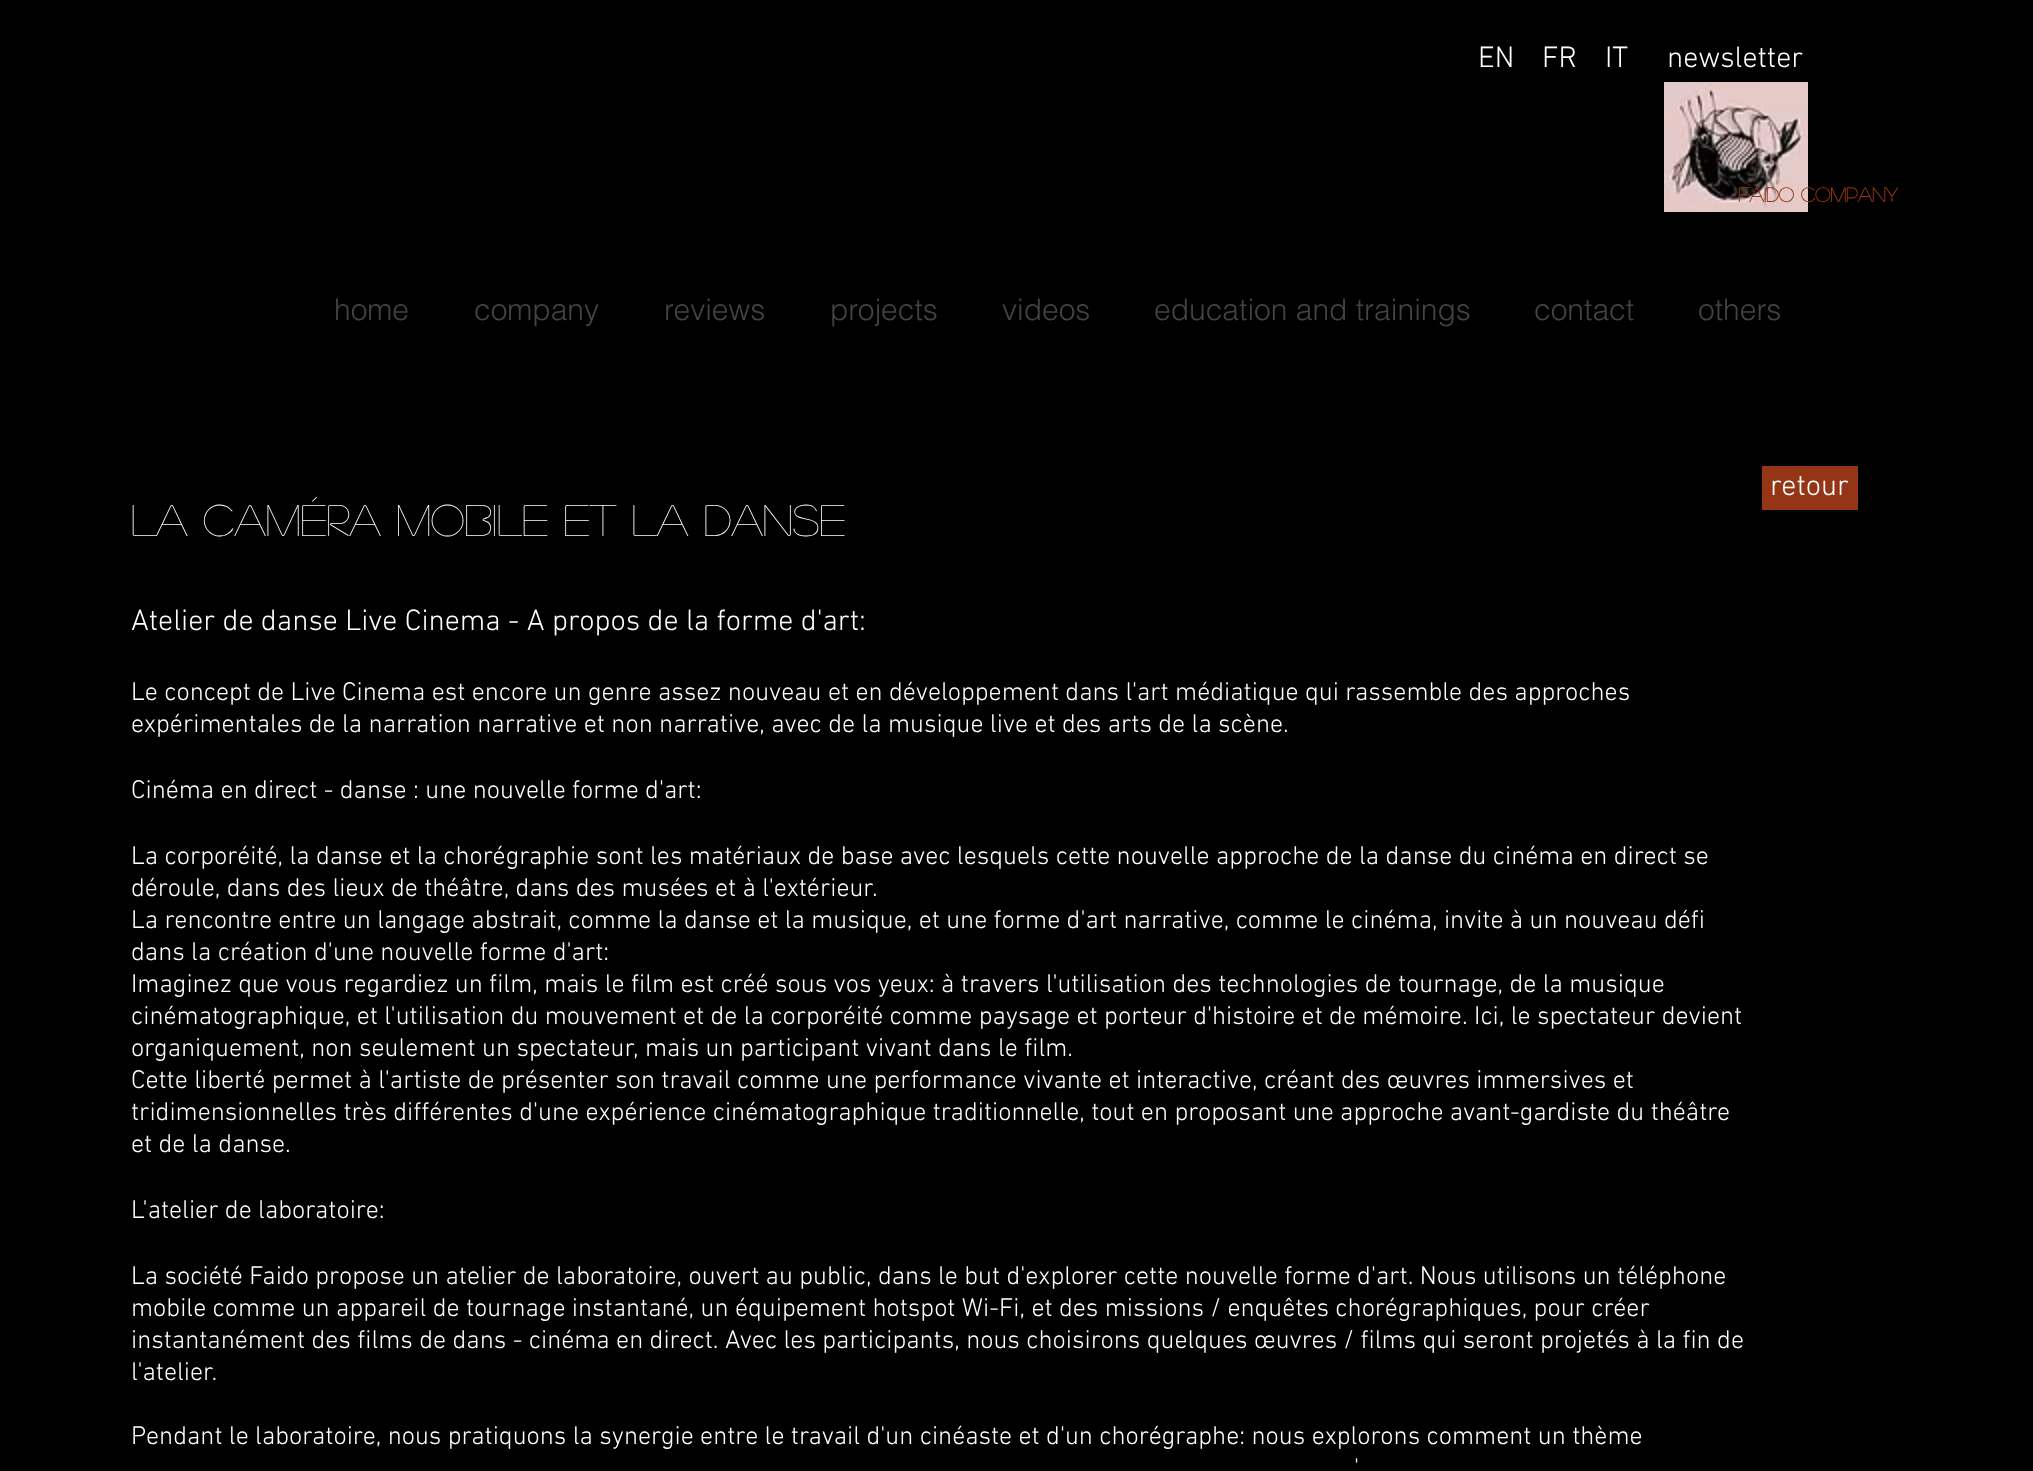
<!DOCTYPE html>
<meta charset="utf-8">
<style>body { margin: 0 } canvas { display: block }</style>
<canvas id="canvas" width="2033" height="1471"></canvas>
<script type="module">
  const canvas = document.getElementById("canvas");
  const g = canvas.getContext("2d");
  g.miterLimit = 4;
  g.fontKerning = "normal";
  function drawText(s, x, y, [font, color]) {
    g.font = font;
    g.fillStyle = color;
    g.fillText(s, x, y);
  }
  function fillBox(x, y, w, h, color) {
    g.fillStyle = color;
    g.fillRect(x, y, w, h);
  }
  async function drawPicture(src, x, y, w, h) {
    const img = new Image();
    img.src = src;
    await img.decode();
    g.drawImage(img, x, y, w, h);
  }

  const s1 = ["300 30px 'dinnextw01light'", "#FFFFFF"];
  const s2 = ["bold 20px 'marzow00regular'", "#943616"];
  const s3 = ["300 30px helvetica", "#444444"];
  const s4 = ["44px 'marzow00regular'", "#FFFFFF"];
  const s5 = ["300 26px 'dinnextw01light'", "#FFFFFF"];

  fillBox(0, 0, 2033, 1471, "#000000");
  drawText("EN", 1478, 67, s1);
  drawText("FR", 1542, 67, s1);
  drawText("IT", 1605, 67, s1);
  drawText("newsletter", 1667, 67, s1);
  await drawPicture("pic1.png", 1664, 82, 144, 130);
  drawText("Faido company", 1738, 202, s2);
  drawText("home", 334, 320, s3);
  drawText("company", 474, 320, s3);
  drawText("reviews", 664, 320, s3);
  drawText("projects", 830, 320, s3);
  drawText("videos", 1002, 320, s3);
  drawText("education and trainings", 1154, 320, s3);
  drawText("contact", 1534, 320, s3);
  drawText("others", 1698, 320, s3);
  fillBox(1762, 466, 96, 44, "#943616");
  drawText("retour", 1770, 495, s1);
  drawText("La caméra mobile et la danse", 131, 536, s4);
  drawText("Atelier de danse Live Cinema - A propos de la forme d'art:", 131, 630, s1);
  drawText("Le concept de Live Cinema est encore un genre assez nouveau et en développement dans l'art médiatique qui rassemble des approches", 131, 700, s5);
  drawText("expérimentales de la narration narrative et non narrative, avec de la musique live et des arts de la scène.", 131, 732, s5);
  drawText("Cinéma en direct - danse : une nouvelle forme d'art:", 131, 798, s5);
  drawText("La corporéité, la danse et la chorégraphie sont les matériaux de base avec lesquels cette nouvelle approche de la danse du cinéma en direct se", 131, 864, s5);
  drawText("déroule, dans des lieux de théâtre, dans des musées et à l'extérieur.", 131, 896, s5);
  drawText("La rencontre entre un langage abstrait, comme la danse et la musique, et une forme d'art narrative, comme le cinéma, invite à un nouveau défi", 131, 928, s5);
  drawText("dans la création d'une nouvelle forme d'art:", 131, 960, s5);
  drawText("Imaginez que vous regardiez un film, mais le film est créé sous vos yeux: à travers l'utilisation des technologies de tournage, de la musique", 131, 992, s5);
  drawText("cinématographique, et l'utilisation du mouvement et de la corporéité comme paysage et porteur d'histoire et de mémoire. Ici, le spectateur devient", 131, 1024, s5);
  drawText("organiquement, non seulement un spectateur, mais un participant vivant dans le film.", 131, 1056, s5);
  drawText("Cette liberté permet à l'artiste de présenter son travail comme une performance vivante et interactive, créant des œuvres immersives et", 131, 1088, s5);
  drawText("tridimensionnelles très différentes d'une expérience cinématographique traditionnelle, tout en proposant une approche avant-gardiste du théâtre", 131, 1120, s5);
  drawText("et de la danse.", 131, 1152, s5);
  drawText("L'atelier de laboratoire:", 131, 1218, s5);
  drawText("La société Faido propose un atelier de laboratoire, ouvert au public, dans le but d'explorer cette nouvelle forme d'art. Nous utilisons un téléphone", 131, 1284, s5);
  drawText("mobile comme un appareil de tournage instantané, un équipement hotspot Wi-Fi, et des missions / enquêtes chorégraphiques, pour créer", 131, 1316, s5);
  drawText("instantanément des films de dans - cinéma en direct. Avec les participants, nous choisirons quelques œuvres / films qui seront projetés à la fin de", 131, 1348, s5);
  drawText("l'atelier.", 131, 1380, s5);
  drawText("Pendant le laboratoire, nous pratiquons la synergie entre le travail d'un cinéaste et d'un chorégraphe: nous explorons comment un thème", 131, 1444, s5);
  drawText("'", 1354, 1476, s5);
</script>
